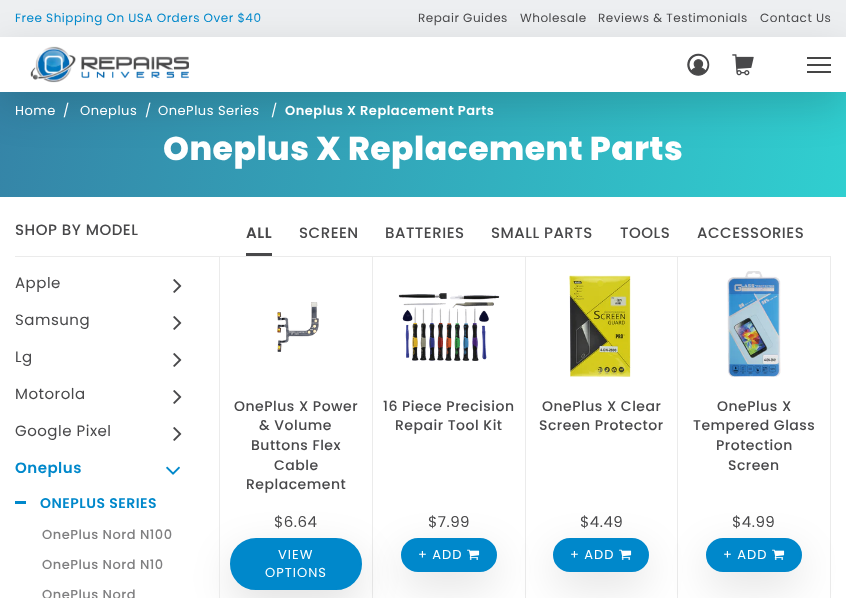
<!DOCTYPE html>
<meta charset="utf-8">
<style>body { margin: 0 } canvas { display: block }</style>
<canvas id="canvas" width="846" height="598"></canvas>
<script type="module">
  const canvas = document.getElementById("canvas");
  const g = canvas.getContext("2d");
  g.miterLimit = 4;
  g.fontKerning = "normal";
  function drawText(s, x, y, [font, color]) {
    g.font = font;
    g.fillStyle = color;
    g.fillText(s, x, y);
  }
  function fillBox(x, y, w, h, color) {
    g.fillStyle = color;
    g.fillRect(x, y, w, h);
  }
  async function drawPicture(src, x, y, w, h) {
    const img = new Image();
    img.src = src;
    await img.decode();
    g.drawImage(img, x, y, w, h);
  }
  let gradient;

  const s1 = ["12px Poppins", "#0088CB"];
  const s2 = ["12px Poppins", "#48484A"];
  const s3 = ["13px Poppins", "#FFFFFF"];
  const s4 = ["600 13px Poppins", "#FFFFFF"];
  const s5 = ["800 33px Poppins", "#FFFFFF"];
  const s6 = ["500 15px Poppins", "#48484A"];
  const s7 = ["15px Poppins", "#48484A"];
  const s8 = ["600 15px Poppins", "#0088CB"];
  const s9 = ["600 14px Poppins", "#0088CB"];
  const s10 = ["500 13px Poppins", "#7F7F80"];
  const s11 = ["600 15px Poppins", "#48484A"];
  const s12 = ["500 14px Poppins", "#48484A"];

  fillBox(0, 0, 846, 598, "#FFFFFF");
  fillBox(0, 0, 846, 37, "#EDEFF1");
  gradient = g.createLinearGradient(3.8, 71, 842, 218);
  gradient.addColorStop(0, "#3584A7");
  gradient.addColorStop(1, "#30CFD0");
  g.fillStyle = gradient;
  g.fillRect(0, 92, 846, 105);
  g.fillStyle = "rgba(0, 0, 0, 0.15)";
  g.filter = "blur(21px)";
  g.beginPath();
  g.rect(0, 51, 846, 55);
  g.fill();
  g.filter = "none";
  fillBox(0, 37, 846, 55, "#FFFFFF");
  await drawPicture("pic1.png", 30, 46, 159, 37);
  await drawPicture("pic2.png", 687, 53, 23, 23);
  await drawPicture("pic3.png", 732, 54, 22, 22);
  fillBox(807, 64, 24, 2, "#454545");
  fillBox(807, 57, 24, 2, "#454545");
  fillBox(807, 71, 24, 2, "#454545");
  g.letterSpacing = "0.5px";
  drawText("Free Shipping On USA Orders Over $40", 15, 22, s1);
  drawText("Repair Guides", 418, 22, s2);
  drawText("Wholesale", 520, 22, s2);
  drawText("Reviews & Testimonials", 598, 22, s2);
  drawText("Contact Us", 760, 22, s2);
  drawText("Home", 15, 115, s3);
  drawText("/", 63, 115, s3);
  drawText("Oneplus", 80, 115, s3);
  drawText("/", 145, 115, s3);
  drawText("OnePlus Series", 158, 115, s3);
  drawText("/", 271, 115, s3);
  drawText("Oneplus X Replacement Parts", 285, 115, s4);
  drawText("Oneplus X Replacement Parts", 163, 160, s5);
  drawText("SHOP BY MODEL", 15, 235, s6);
  drawText("Apple", 15, 288, s7);
  await drawPicture("pic4.png", 173, 279, 9, 14);
  drawText("Samsung", 15, 325, s7);
  await drawPicture("pic4.png", 173, 316, 9, 14);
  drawText("Lg", 15, 362, s7);
  await drawPicture("pic4.png", 173, 353, 9, 14);
  drawText("Motorola", 15, 399, s7);
  await drawPicture("pic4.png", 173, 390, 9, 14);
  drawText("Google Pixel", 15, 436, s7);
  await drawPicture("pic4.png", 173, 427, 9, 14);
  drawText("Oneplus", 15, 473, s8);
  await drawPicture("pic5.png", 166, 466, 14, 9);
  fillBox(15, 501, 11, 3, "#0088CB");
  drawText("ONEPLUS SERIES", 40, 508, s9);
  fillBox(372, 257, 1, 341, "#EBEBEB");
  g.fillStyle = "rgba(0, 0, 0, 0.12)";
  g.filter = "blur(21px)";
  g.beginPath();
  g.roundRect(230, 552, 132, 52, 26);
  g.fill();
  g.filter = "none";
  drawText("OnePlus Nord N100", 42, 539, s10);
  drawText("OnePlus Nord N10", 42, 569, s10);
  drawText("OnePlus Nord", 42, 599, s10);
  fillBox(219, 262, 1, 336, "#EBEBEB");
  fillBox(246, 253, 26, 3, "#48484A");
  drawText("ALL", 246, 238, s11);
  drawText("SCREEN", 299, 238, s6);
  drawText("BATTERIES", 385, 238, s6);
  drawText("SMALL PARTS", 491, 238, s6);
  drawText("TOOLS", 620, 238, s6);
  drawText("ACCESSORIES", 697, 238, s6);
  fillBox(15, 256, 816, 1, "#EBEBEB");
  fillBox(219, 256, 1, 6, "#EBEBEB");
  await drawPicture("pic6.png", 277, 302, 42, 50);
  drawText("OnePlus X Power", 234, 411, s12);
  drawText("& Volume", 259, 430, s12);
  drawText("Buttons Flex", 251, 450, s12);
  drawText("Cable", 274, 470, s12);
  drawText("Replacement", 246, 489, s12);
  drawText("$6.64", 274, 527, s7);
  g.fillStyle = "#0088CB";
  g.beginPath();
  g.roundRect(231, 539, 130, 50, 25);
  g.fill();
  g.strokeStyle = "#0088CB";
  g.lineWidth = 2;
  g.stroke();
  g.letterSpacing = "1px";
  drawText("VIEW", 278, 559, s3);
  drawText("OPTIONS", 265, 577, s3);
  fillBox(525, 257, 1, 341, "#EBEBEB");
  await drawPicture("pic7.png", 398, 293, 102, 68);
  g.letterSpacing = "0.5px";
  drawText("16 Piece Precision", 383, 411, s12);
  drawText("Repair Tool Kit", 395, 430, s12);
  drawText("$7.99", 428, 527, s7);
  g.fillStyle = "rgba(0, 0, 0, 0.12)";
  g.filter = "blur(21px)";
  g.beginPath();
  g.roundRect(401, 552, 96, 34, 17);
  g.fill();
  g.filter = "none";
  g.fillStyle = "#0088CB";
  g.beginPath();
  g.roundRect(402, 539, 94, 32, 16);
  g.fill();
  g.stroke();
  g.letterSpacing = "1px";
  drawText("+ ADD", 418, 559, s3);
  await drawPicture("pic8.png", 467, 549, 13, 11);
  fillBox(677, 257, 1, 341, "#EBEBEB");
  await drawPicture("pic9.png", 569, 275, 62, 102);
  g.letterSpacing = "0.5px";
  drawText("OnePlus X Clear", 542, 411, s12);
  drawText("Screen Protector", 539, 430, s12);
  drawText("$4.49", 580, 527, s7);
  g.fillStyle = "rgba(0, 0, 0, 0.12)";
  g.filter = "blur(21px)";
  g.beginPath();
  g.roundRect(553, 552, 96, 34, 17);
  g.fill();
  g.filter = "none";
  g.fillStyle = "#0088CB";
  g.beginPath();
  g.roundRect(554, 539, 94, 32, 16);
  g.fill();
  g.stroke();
  g.letterSpacing = "1px";
  drawText("+ ADD", 570, 559, s3);
  await drawPicture("pic8.png", 619, 549, 13, 11);
  fillBox(830, 257, 1, 341, "#EBEBEB");
  await drawPicture("pic10.png", 727, 271, 54, 106);
  g.letterSpacing = "0.5px";
  drawText("OnePlus X", 717, 411, s12);
  drawText("Tempered Glass", 693, 430, s12);
  drawText("Protection", 716, 450, s12);
  drawText("Screen", 728, 470, s12);
  drawText("$4.99", 732, 527, s7);
  g.fillStyle = "rgba(0, 0, 0, 0.12)";
  g.filter = "blur(21px)";
  g.beginPath();
  g.roundRect(706, 552, 96, 34, 17);
  g.fill();
  g.filter = "none";
  g.fillStyle = "#0088CB";
  g.beginPath();
  g.roundRect(707, 539, 94, 32, 16);
  g.fill();
  g.stroke();
  g.letterSpacing = "1px";
  drawText("+ ADD", 723, 559, s3);
  await drawPicture("pic8.png", 772, 549, 13, 11);
</script>
